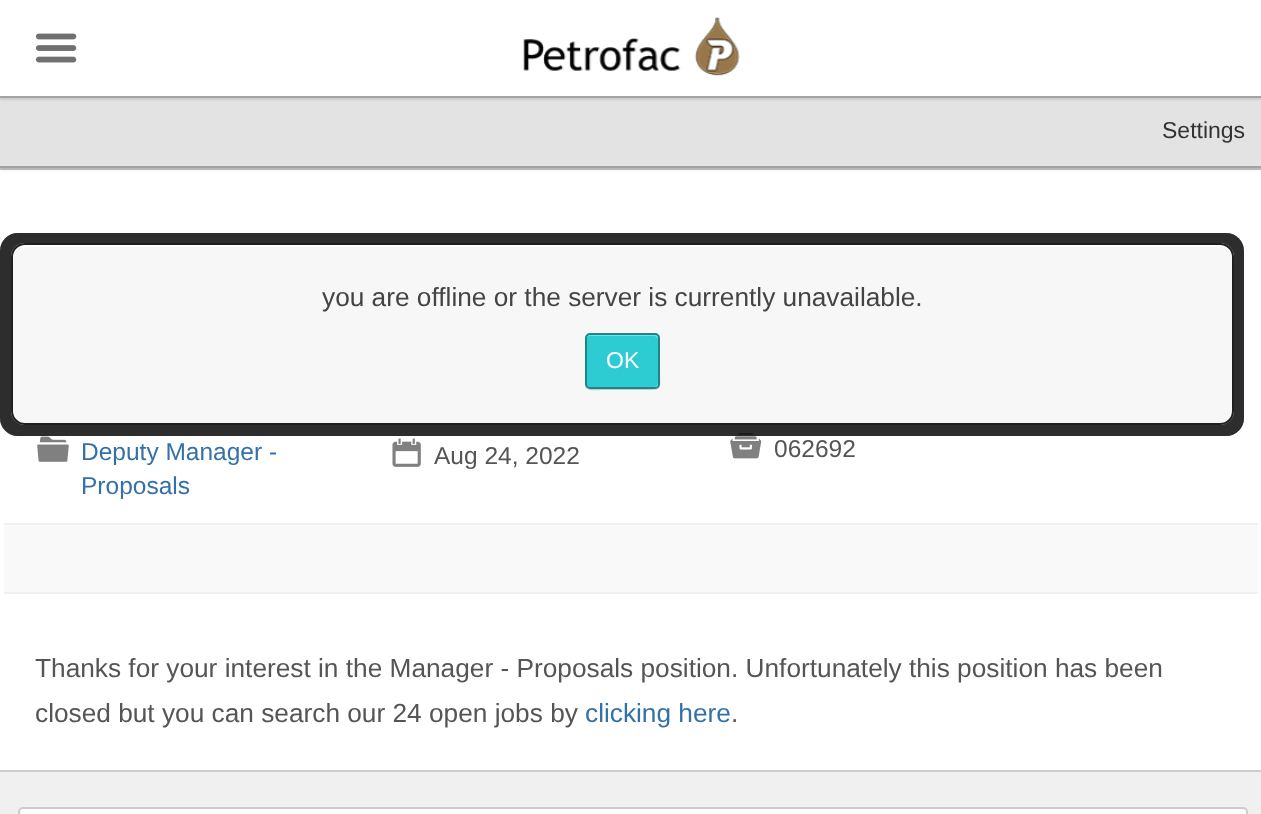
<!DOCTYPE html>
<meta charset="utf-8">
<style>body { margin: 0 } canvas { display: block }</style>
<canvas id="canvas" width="1261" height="814"></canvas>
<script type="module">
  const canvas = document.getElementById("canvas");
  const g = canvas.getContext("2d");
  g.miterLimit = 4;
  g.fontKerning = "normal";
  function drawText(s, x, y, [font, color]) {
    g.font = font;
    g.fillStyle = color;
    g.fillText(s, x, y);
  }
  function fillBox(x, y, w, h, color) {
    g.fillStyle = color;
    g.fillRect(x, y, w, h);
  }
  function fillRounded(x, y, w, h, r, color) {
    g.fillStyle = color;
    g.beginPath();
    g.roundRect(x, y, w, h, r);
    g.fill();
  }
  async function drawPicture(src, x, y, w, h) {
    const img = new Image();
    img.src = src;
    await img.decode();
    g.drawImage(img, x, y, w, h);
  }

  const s1 = ["23px Liberation Sans", "#333333"];
  const s2 = ["26.25px Liberation Sans", "#444444"];
  const s3 = ["23px Liberation Sans", "#FFFFFF"];
  const s4 = ["24.5px Liberation Sans", "#3571A6"];
  const s5 = ["24.5px Liberation Sans", "#555555"];
  const s6 = ["26.25px Liberation Sans", "#555555"];
  const s7 = ["26.25px Liberation Sans", "#3571A6"];

  fillBox(0, 0, 1261, 814, "#F0F0F0");
  fillBox(0, 170, 1261, 600, "#FFFFFF");
  fillBox(0, 168, 1261, 2, "#CCCCCC");
  g.fillStyle = "rgba(0, 0, 0, 0.1)";
  g.filter = "blur(1px)";
  g.beginPath();
  g.rect(0, 98, 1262, 72);
  g.fill();
  g.filter = "none";
  fillBox(0, 98, 1261, 68, "#E3E3E3");
  fillBox(0, 166, 1261, 2, "#A3A3A3");
  drawText("Settings", 1162, 138, s1);
  await drawPicture("pic5.png", 730, 433, 32, 26);
  fillRounded(0, 233, 1244, 203, 18, "rgba(0, 0, 0, 0.35)");
  g.beginPath();
  g.roundRect(12, 244, 1221, 180, 13);
  g.strokeStyle = "#202020";
  g.lineWidth = 2;
  g.stroke();
  fillRounded(0, 233, 1244, 203, 18, "rgba(0, 0, 0, 0.35)");
  g.beginPath();
  g.roundRect(12, 244, 1221, 180, 13);
  g.stroke();
  fillRounded(0, 233, 1244, 203, 18, "rgba(0, 0, 0, 0.35)");
  g.beginPath();
  g.roundRect(12, 244, 1221, 180, 13);
  g.stroke();
  fillRounded(0, 233, 1244, 203, 18, "rgba(0, 0, 0, 0.35)");
  fillRounded(11, 243, 1223, 182, 14, "#F7F7F7");
  g.fillStyle = "#FFFFFF";
  g.beginPath();
  g.moveTo(24, 247);
  g.lineTo(1220, 247);
  g.bezierCurveTo(1227, 247, 1232, 252, 1232, 259);
  g.bezierCurveTo(1232, 252, 1228, 245, 1220, 245);
  g.lineTo(24, 245);
  g.bezierCurveTo(16, 245, 12, 252, 12, 259);
  g.bezierCurveTo(12, 252, 18, 247, 24, 247);
  g.closePath();
  g.fill();
  g.beginPath();
  g.roundRect(12, 244, 1221, 180, 13);
  g.stroke();
  drawText("you are offline or the server is currently unavailable.", 322, 306, s2);
  g.fillStyle = "#CBCBCB";
  g.beginPath();
  g.moveTo(585, 386);
  g.bezierCurveTo(586, 392, 598, 390, 601, 390);
  g.lineTo(644, 390);
  g.bezierCurveTo(664, 390, 660, 390, 660, 370);
  g.lineTo(660, 337);
  g.lineTo(660, 376);
  g.bezierCurveTo(660, 391, 659, 388, 644, 388);
  g.lineTo(601, 388);
  g.bezierCurveTo(597, 388, 588, 391, 585, 386);
  g.closePath();
  g.fill();
  fillRounded(586, 334, 72, 53, 4, "#2DCCD3");
  g.fillStyle = "rgba(255, 255, 255, 0.35)";
  g.beginPath();
  g.moveTo(590, 336);
  g.lineTo(654, 336);
  g.bezierCurveTo(656, 336, 658, 338, 658, 340);
  g.bezierCurveTo(658, 331, 651, 334, 643, 334);
  g.lineTo(601, 334);
  g.bezierCurveTo(593, 334, 586, 331, 586, 340);
  g.bezierCurveTo(586, 338, 588, 336, 590, 336);
  g.closePath();
  g.fill();
  g.beginPath();
  g.roundRect(586, 334, 73, 54, 4);
  g.strokeStyle = "#1D8589";
  g.stroke();
  drawText("OK", 606, 368, s3);
  g.fillStyle = "rgba(0, 0, 0, 0.1)";
  g.filter = "blur(1px)";
  g.beginPath();
  g.rect(0, 2, 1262, 98);
  g.fill();
  g.filter = "none";
  fillBox(0, 0, 1261, 96, "#FFFFFF");
  fillBox(0, 96, 1261, 2, "#A3A3A3");
  await drawPicture("pic1.png", 35, 33, 42, 30);
  await drawPicture("pic2.png", 523, 17, 217, 59);
  fillBox(0, 770, 1261, 2, "#CCCCCC");
  await drawPicture("pic3.png", 37, 436, 32, 26);
  drawText("Deputy Manager -", 81, 460, s4);
  drawText("Proposals", 81, 494, s4);
  await drawPicture("pic4.png", 392, 438, 29, 29);
  drawText("Aug 24, 2022", 434, 464, s5);
  drawText("062692", 774, 457, s5);
  fillBox(4, 525, 1254, 67, "#F9F9F9");
  fillBox(4, 523, 1254, 2, "#F0F0F0");
  fillBox(4, 592, 1254, 2, "#F0F0F0");
  drawText("Thanks for your interest in the Manager - Proposals position. Unfortunately this position has been", 35, 677, s6);
  drawText("closed but you can search our 24 open jobs by", 35, 722, s6);
  drawText("clicking here", 585, 722, s7);
  drawText(".", 731, 722, s6);
  g.fillStyle = "#FFFFFF";
  g.beginPath();
  g.roundRect(19, 808, 1228, 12, 4);
  g.fill();
  g.strokeStyle = "#CCCCCC";
  g.stroke();
</script>
